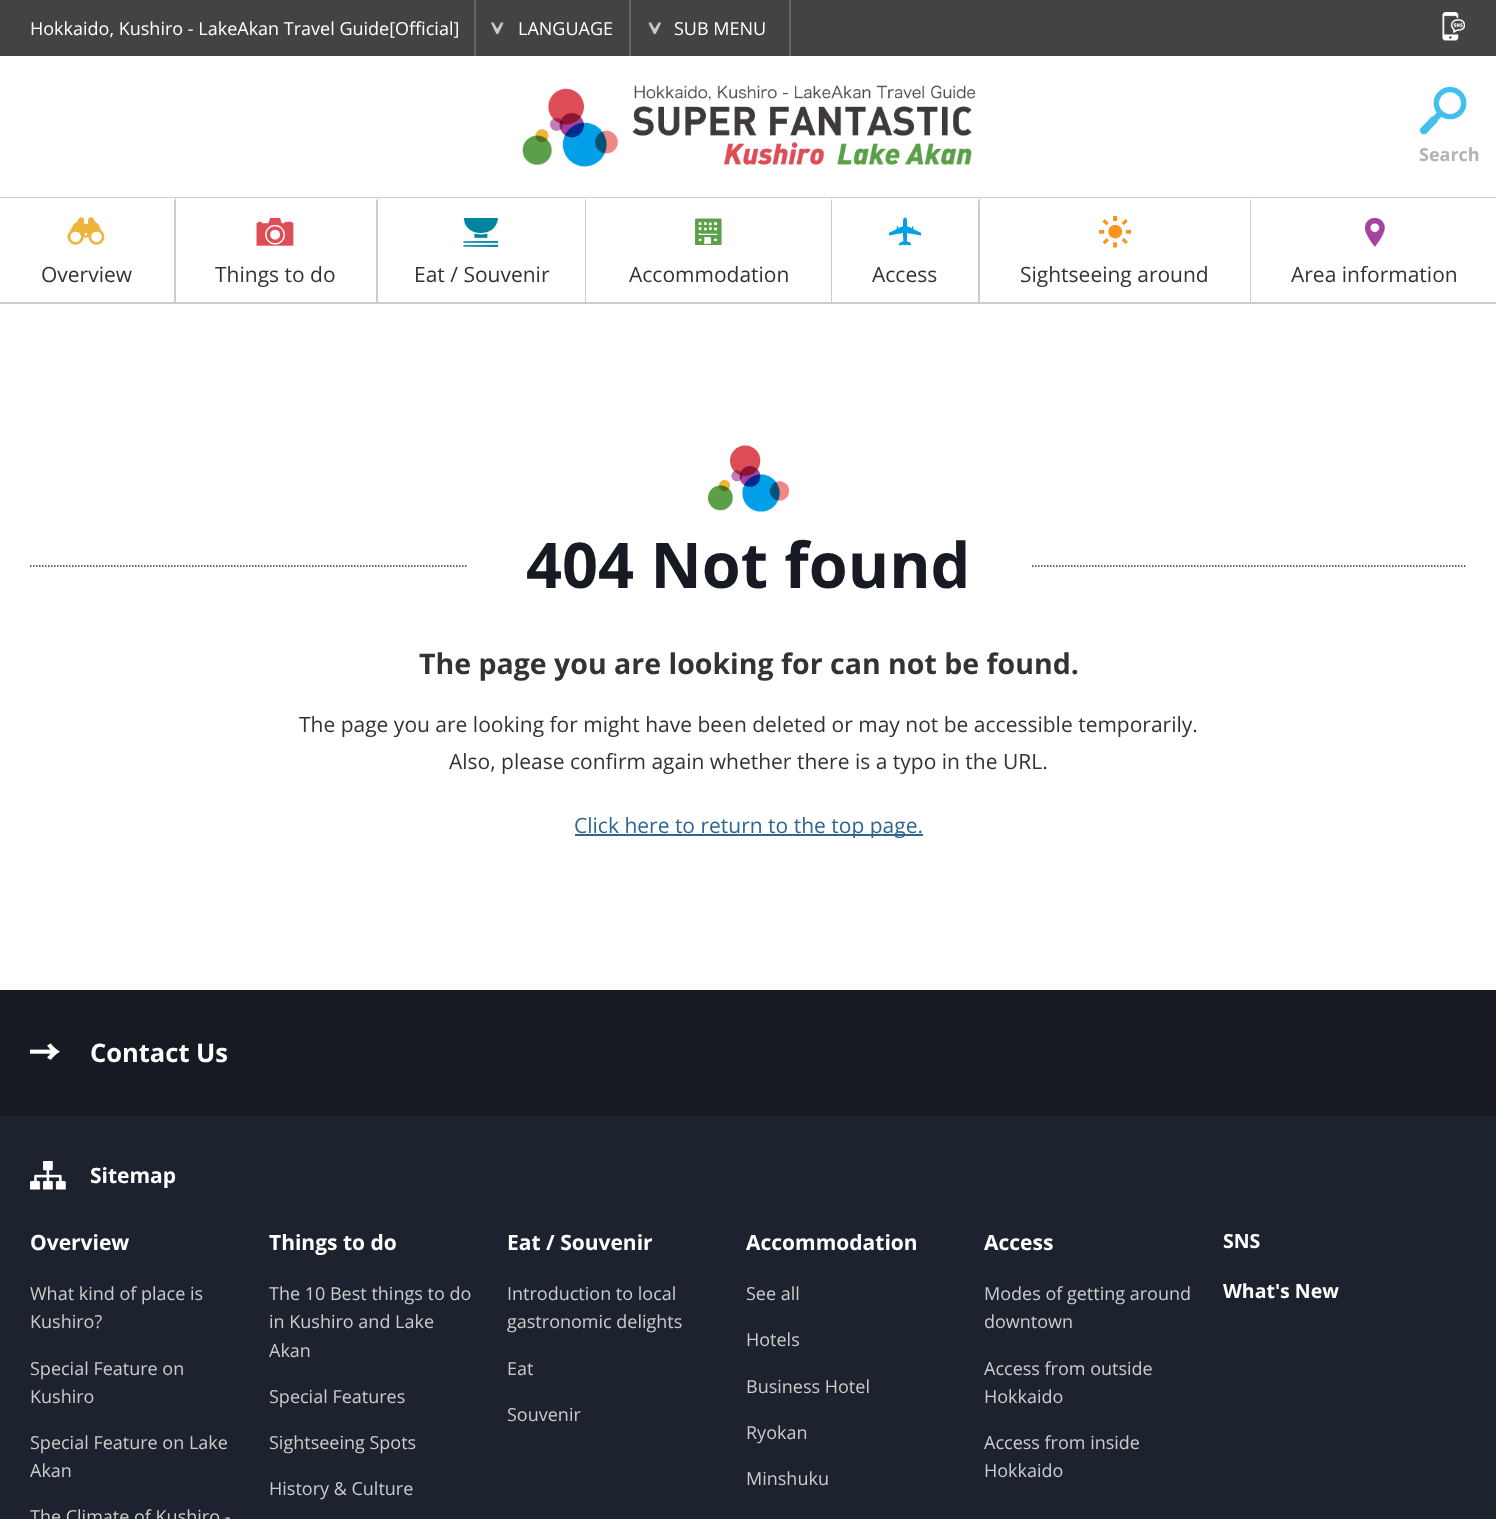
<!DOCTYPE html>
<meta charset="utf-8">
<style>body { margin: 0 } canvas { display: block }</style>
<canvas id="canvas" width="1496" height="1519"></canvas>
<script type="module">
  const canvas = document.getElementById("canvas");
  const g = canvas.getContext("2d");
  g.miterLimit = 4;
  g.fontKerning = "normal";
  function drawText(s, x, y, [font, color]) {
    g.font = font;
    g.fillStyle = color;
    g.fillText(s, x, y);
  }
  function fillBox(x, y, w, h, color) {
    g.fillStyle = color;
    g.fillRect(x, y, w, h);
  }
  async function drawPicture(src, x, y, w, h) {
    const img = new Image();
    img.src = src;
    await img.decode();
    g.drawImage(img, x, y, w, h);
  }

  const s1 = ["18px Open Sans", "#FFFFFF"];
  const s2 = ["bold 18px Open Sans", "#B3B3B3"];
  const s3 = ["21px Open Sans", "#333333"];
  const s4 = ["bold 63px Open Sans", "#171A23"];
  const s5 = ["bold 28.5px Open Sans", "#333333"];
  const s6 = ["21px Open Sans", "#2F6691"];
  const s7 = ["bold 25.5px Open Sans", "#FFFFFF"];
  const s8 = ["bold 21px Open Sans", "#FFFFFF"];
  const s9 = ["18px Open Sans", "#CCCCCC"];
  const s10 = ["bold 19.5px Open Sans", "#FFFFFF"];

  fillBox(0, 0, 1496, 1519, "#FFFFFF");
  fillBox(0, 0, 1496, 56, "#434343");
  fillBox(474, 0, 2, 56, "#666666");
  drawText("Hokkaido, Kushiro - LakeAkan Travel Guide[Official]", 30, 35, s1);
  fillBox(629, 0, 2, 56, "#666666");
  await drawPicture("pic1.png", 490, 22, 14, 13);
  drawText("LANGUAGE", 518, 35, s1);
  await drawPicture("pic2.png", 648, 22, 14, 13);
  fillBox(789, 0, 2, 56, "#666666");
  drawText("SUB MENU", 674, 35, s1);
  await drawPicture("pic3.png", 1442, 12, 23, 29);
  await drawPicture("pic4.png", 522, 85, 453, 82);
  await drawPicture("pic5.png", 1419, 86, 48, 49);
  drawText("Search", 1419, 161, s2);
  fillBox(0, 197, 1496, 2, "#CCCCCC");
  fillBox(0, 302, 1496, 2, "#CCCCCC");
  g.fillStyle = "#FFFFFF";
  g.beginPath();
  g.moveTo(0, 198);
  g.lineTo(176, 198);
  g.lineTo(174, 201);
  g.lineTo(0, 201);
  g.closePath();
  g.fill();
  g.fillStyle = "#CCCCCC";
  g.beginPath();
  g.moveTo(176, 198);
  g.lineTo(176, 302);
  g.lineTo(174, 302);
  g.lineTo(174, 201);
  g.closePath();
  g.fill();
  await drawPicture("pic6.png", 67, 217, 38, 28);
  drawText("Overview", 41, 282, s3);
  g.fillStyle = "#FFFFFF";
  g.beginPath();
  g.moveTo(176, 198);
  g.lineTo(378, 198);
  g.lineTo(376, 201);
  g.lineTo(176, 201);
  g.closePath();
  g.fill();
  g.fillStyle = "#CCCCCC";
  g.beginPath();
  g.moveTo(378, 198);
  g.lineTo(378, 302);
  g.lineTo(376, 302);
  g.lineTo(376, 201);
  g.closePath();
  g.fill();
  await drawPicture("pic7.png", 256, 217, 38, 29);
  drawText("Things to do", 215, 282, s3);
  g.fillStyle = "#FFFFFF";
  g.beginPath();
  g.moveTo(378, 198);
  g.lineTo(586, 198);
  g.lineTo(585, 201);
  g.lineTo(378, 201);
  g.closePath();
  g.fill();
  g.fillStyle = "#CCCCCC";
  g.beginPath();
  g.moveTo(586, 198);
  g.lineTo(586, 302);
  g.lineTo(585, 302);
  g.lineTo(585, 201);
  g.closePath();
  g.fill();
  await drawPicture("pic8.png", 463, 218, 36, 29);
  drawText("Eat / Souvenir", 414, 282, s3);
  g.fillStyle = "#FFFFFF";
  g.beginPath();
  g.moveTo(586, 198);
  g.lineTo(832, 198);
  g.lineTo(831, 201);
  g.lineTo(586, 201);
  g.closePath();
  g.fill();
  g.fillStyle = "#CCCCCC";
  g.beginPath();
  g.moveTo(832, 198);
  g.lineTo(832, 302);
  g.lineTo(831, 302);
  g.lineTo(831, 201);
  g.closePath();
  g.fill();
  await drawPicture("pic9.png", 695, 218, 27, 27);
  drawText("Accommodation", 629, 282, s3);
  g.fillStyle = "#FFFFFF";
  g.beginPath();
  g.moveTo(832, 198);
  g.lineTo(980, 198);
  g.lineTo(978, 201);
  g.lineTo(832, 201);
  g.closePath();
  g.fill();
  g.fillStyle = "#CCCCCC";
  g.beginPath();
  g.moveTo(980, 198);
  g.lineTo(980, 302);
  g.lineTo(978, 302);
  g.lineTo(978, 201);
  g.closePath();
  g.fill();
  await drawPicture("pic10.png", 889, 217, 33, 29);
  drawText("Access", 872, 282, s3);
  g.fillStyle = "#FFFFFF";
  g.beginPath();
  g.moveTo(980, 198);
  g.lineTo(1251, 198);
  g.lineTo(1250, 201);
  g.lineTo(980, 201);
  g.closePath();
  g.fill();
  g.fillStyle = "#CCCCCC";
  g.beginPath();
  g.moveTo(1251, 198);
  g.lineTo(1251, 302);
  g.lineTo(1250, 302);
  g.lineTo(1250, 201);
  g.closePath();
  g.fill();
  await drawPicture("pic11.png", 1099, 216, 32, 32);
  drawText("Sightseeing around", 1020, 282, s3);
  fillBox(1251, 198, 245, 1, "#FFFFFF");
  await drawPicture("pic12.png", 1365, 218, 20, 29);
  drawText("Area information", 1291, 282, s3);
  await drawPicture("pic13.png", 708, 445, 81, 67);
  g.beginPath();
  g.moveTo(30, 566);
  g.lineTo(1467, 566);
  g.strokeStyle = "#333333";
  g.lineWidth = 1.5;
  g.setLineDash([1.5, 1.5]);
  g.stroke();
  fillBox(468, 565, 563, 2, "#FFFFFF");
  drawText("404 Not found", 526, 588, s4);
  drawText("The page you are looking for can not be found.", 419, 674, s5);
  drawText("The page you are looking for might have been deleted or may not be accessible temporarily.", 299, 732, s3);
  drawText("Also, please confirm again whether there is a typo in the URL.", 449, 769, s3);
  fillBox(575, 834, 348, 2, "#2F6691");
  drawText("Click here to return to the top page.", 574, 833, s6);
  fillBox(0, 990, 1496, 126, "#171A23");
  await drawPicture("pic14.png", 30, 1043, 30, 17);
  drawText("Contact Us", 90, 1062, s7);
  fillBox(0, 1116, 1496, 403, "#1C222E");
  await drawPicture("pic15.png", 30, 1161, 36, 29);
  drawText("Sitemap", 90, 1183, s8);
  drawText("Overview", 30, 1250, s8);
  drawText("What kind of place is", 30, 1300, s9);
  drawText("Kushiro?", 30, 1328, s9);
  drawText("Special Feature on", 30, 1375, s9);
  drawText("Kushiro", 30, 1403, s9);
  drawText("Special Feature on Lake", 30, 1449, s9);
  drawText("Akan", 30, 1477, s9);
  drawText("The Climate of Kushiro -", 30, 1523, s9);
  drawText("Things to do", 269, 1250, s8);
  drawText("The 10 Best things to do", 269, 1300, s9);
  drawText("in Kushiro and Lake", 269, 1328, s9);
  drawText("Akan", 269, 1357, s9);
  drawText("Special Features", 269, 1403, s9);
  drawText("Sightseeing Spots", 269, 1449, s9);
  drawText("History & Culture", 269, 1495, s9);
  drawText("Eat / Souvenir", 507, 1250, s8);
  drawText("Introduction to local", 507, 1300, s9);
  drawText("gastronomic delights", 507, 1328, s9);
  drawText("Eat", 507, 1375, s9);
  drawText("Souvenir", 507, 1421, s9);
  drawText("Accommodation", 746, 1250, s8);
  drawText("See all", 746, 1300, s9);
  drawText("Hotels", 746, 1346, s9);
  drawText("Business Hotel", 746, 1393, s9);
  drawText("Ryokan", 746, 1439, s9);
  drawText("Minshuku", 746, 1485, s9);
  drawText("Access", 984, 1250, s8);
  drawText("Modes of getting around", 984, 1300, s9);
  drawText("downtown", 984, 1328, s9);
  drawText("Access from outside", 984, 1375, s9);
  drawText("Hokkaido", 984, 1403, s9);
  drawText("Access from inside", 984, 1449, s9);
  drawText("Hokkaido", 984, 1477, s9);
  drawText("SNS", 1223, 1248, s10);
  drawText("What's New", 1223, 1298, s10);
</script>
